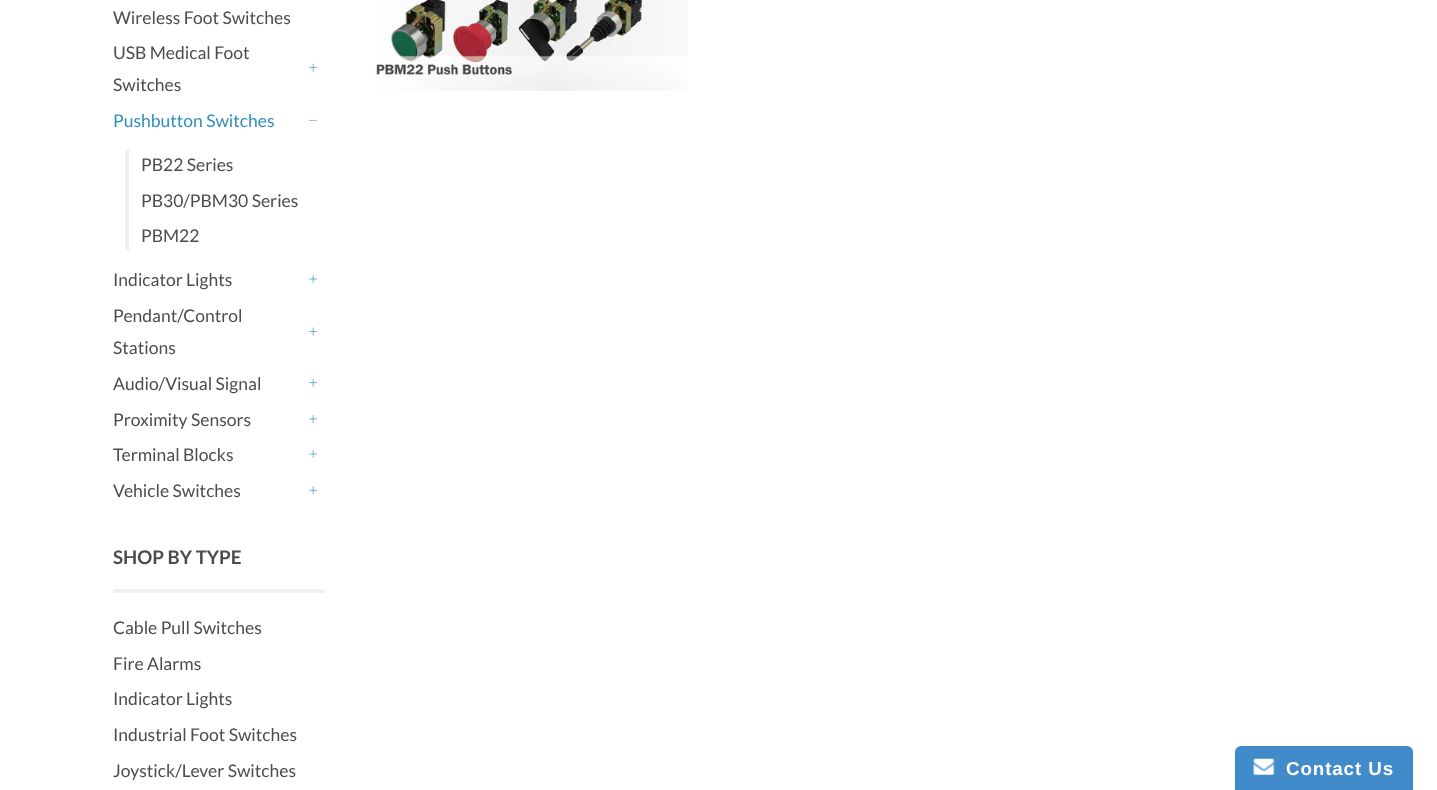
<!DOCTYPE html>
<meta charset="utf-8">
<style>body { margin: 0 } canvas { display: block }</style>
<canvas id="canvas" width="1437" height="790"></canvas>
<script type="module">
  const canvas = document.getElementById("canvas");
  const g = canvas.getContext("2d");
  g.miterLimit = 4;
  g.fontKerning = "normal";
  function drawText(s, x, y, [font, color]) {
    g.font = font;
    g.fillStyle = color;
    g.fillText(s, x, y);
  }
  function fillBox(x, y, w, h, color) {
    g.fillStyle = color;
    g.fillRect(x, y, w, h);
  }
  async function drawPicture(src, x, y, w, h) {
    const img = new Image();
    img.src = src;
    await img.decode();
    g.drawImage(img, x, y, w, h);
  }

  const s1 = ["17.5px Lato", "#4C4C4C"];
  const s2 = ["17.5px Lato", "#338DBC"];
  const s3 = ["bold 18.75px Lato", "#4C4C4C"];
  const s4 = ["bold 18.75px Liberation Sans", "#FFFFFF"];

  fillBox(0, 0, 1437, 790, "#FFFFFF");
  drawText("Wireless Foot Switches", 113, 24, s1);
  drawText("USB Medical Foot", 113, 59, s1);
  drawText("Switches", 113, 91, s1);
  await drawPicture("pic1.png", 309, 63, 9, 9);
  drawText("Pushbutton Switches", 113, 127, s2);
  g.beginPath();
  g.moveTo(309, 120);
  g.lineTo(317, 120);
  g.lineTo(317, 120.5);
  g.lineTo(309, 120.5);
  g.closePath();
  g.fill();
  fillBox(125, 149, 4, 102, "#F0F0F0");
  drawText("PB22 Series", 141, 171, s1);
  drawText("PB30/PBM30 Series", 141, 207, s1);
  drawText("PBM22", 141, 242, s1);
  drawText("Indicator Lights", 113, 286, s1);
  await drawPicture("pic2.png", 309, 275, 8, 8);
  drawText("Pendant/Control", 113, 322, s1);
  drawText("Stations", 113, 354, s1);
  await drawPicture("pic3.png", 309, 327, 9, 9);
  drawText("Audio/Visual Signal", 113, 390, s1);
  await drawPicture("pic1.png", 309, 378, 9, 9);
  drawText("Proximity Sensors", 113, 426, s1);
  await drawPicture("pic2.png", 309, 415, 8, 8);
  drawText("Terminal Blocks", 113, 461, s1);
  await drawPicture("pic2.png", 309, 450, 8, 8);
  drawText("Vehicle Switches", 113, 497, s1);
  await drawPicture("pic4.png", 309, 486, 9, 9);
  fillBox(113, 589, 212, 4, "#F0F0F0");
  drawText("SHOP BY TYPE", 113, 564, s3);
  drawText("Cable Pull Switches", 113, 634, s1);
  drawText("Fire Alarms", 113, 670, s1);
  drawText("Indicator Lights", 113, 705, s1);
  drawText("Industrial Foot Switches", 113, 741, s1);
  drawText("Joystick/Lever Switches", 113, 777, s1);
  await drawPicture("pic5.png", 375, 0, 313, 91);
  g.fillStyle = "#428BCA";
  g.beginPath();
  g.roundRect(1235, 746, 178, 44, [6, 6, 0, 0]);
  g.fill();
  await drawPicture("pic6.png", 1253, 758, 22, 17);
  g.letterSpacing = "0.9px";
  drawText("Contact Us", 1286, 775, s4);
</script>
